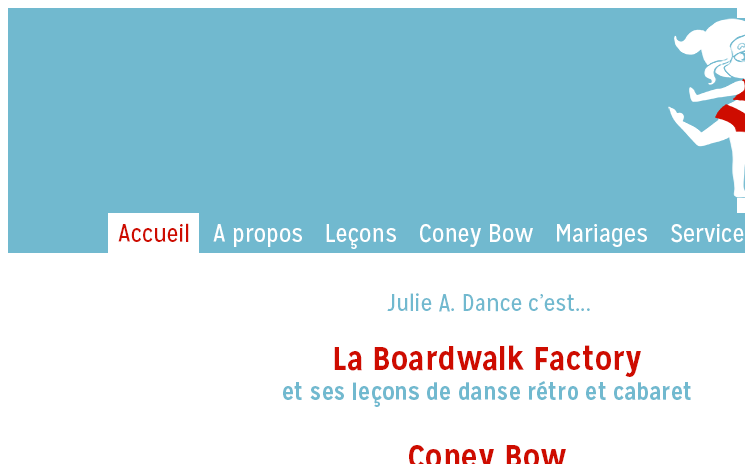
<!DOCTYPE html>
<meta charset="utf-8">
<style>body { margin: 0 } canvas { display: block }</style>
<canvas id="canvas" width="745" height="464"></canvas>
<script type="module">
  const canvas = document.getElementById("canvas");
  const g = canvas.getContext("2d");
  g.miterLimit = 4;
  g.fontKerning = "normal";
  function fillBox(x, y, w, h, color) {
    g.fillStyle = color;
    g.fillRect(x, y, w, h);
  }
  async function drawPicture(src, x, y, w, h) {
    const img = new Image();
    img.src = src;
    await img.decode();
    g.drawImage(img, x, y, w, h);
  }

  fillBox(0, 0, 745, 464, "#FFFFFF");
  fillBox(8, 8, 729, 245, "#71B9CF");
  await drawPicture("pic1.png", 668, 18, 77, 180);
  await drawPicture("pic2.png", 108, 213, 91, 40);
  await drawPicture("pic3.png", 213, 224, 89, 23);
  await drawPicture("pic4.png", 326, 224, 70, 25);
  await drawPicture("pic5.png", 420, 224, 113, 23);
  await drawPicture("pic6.png", 557, 224, 90, 23);
  await drawPicture("pic7.png", 671, 213, 74, 40);
  await drawPicture("pic8.png", 387, 293, 203, 19);
  await drawPicture("pic9.png", 334, 345, 307, 32);
  await drawPicture("pic10.png", 283, 381, 408, 26);
  await drawPicture("pic11.png", 409, 445, 157, 19);
</script>
